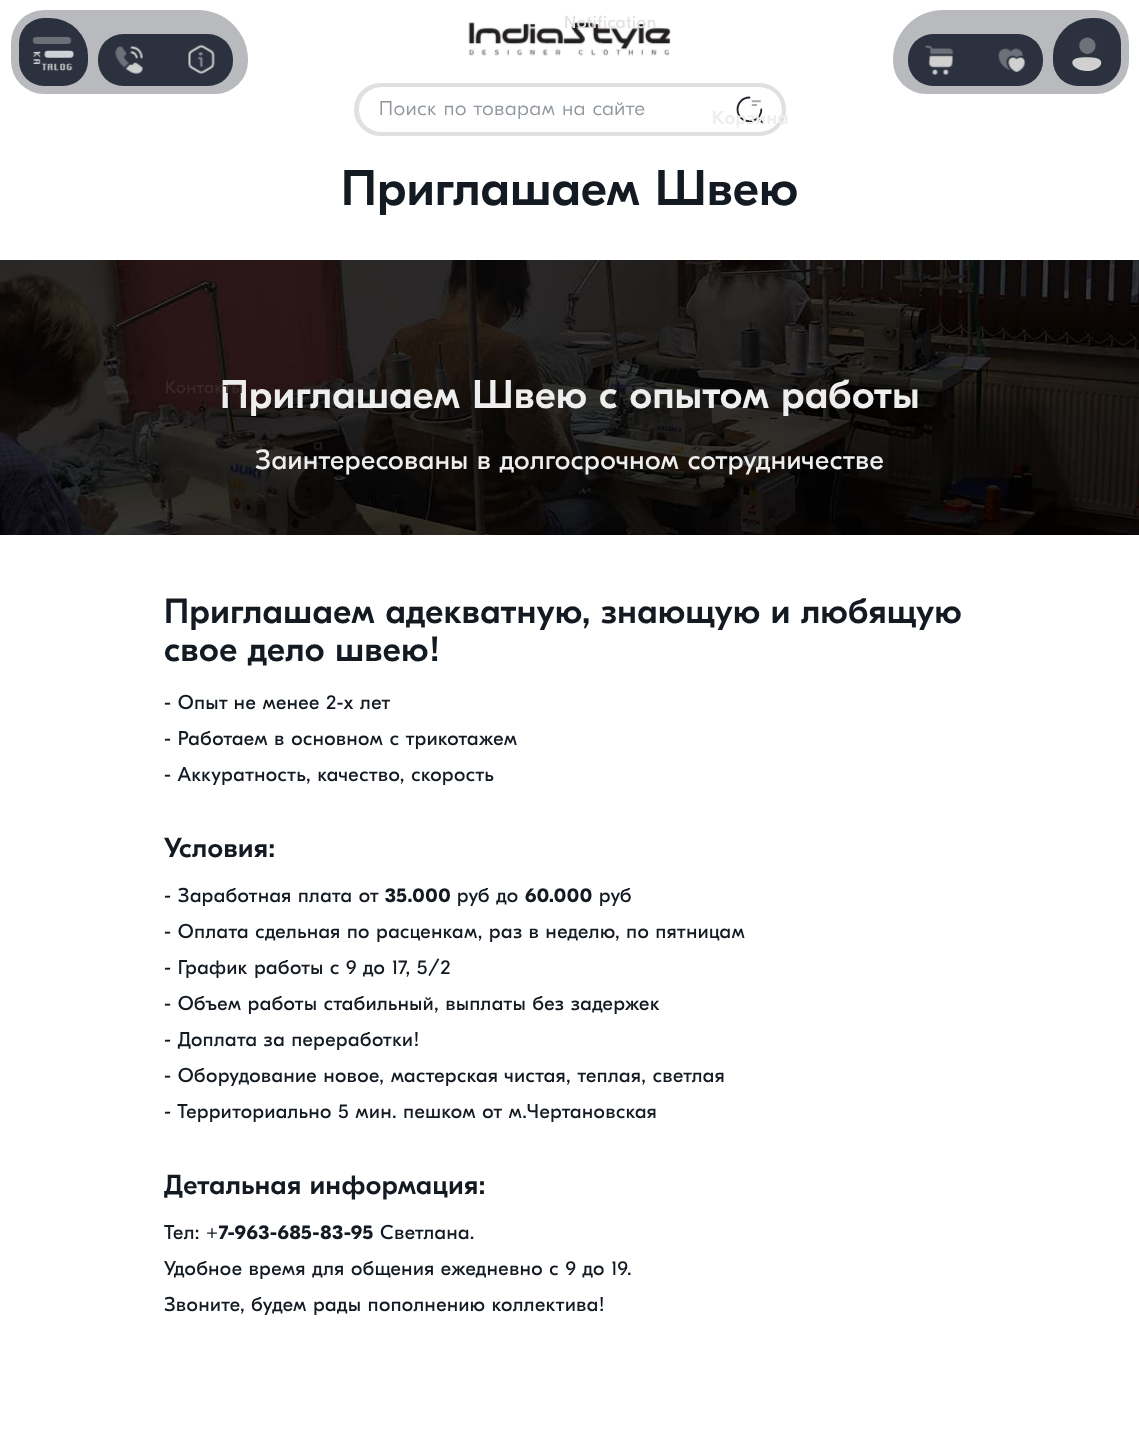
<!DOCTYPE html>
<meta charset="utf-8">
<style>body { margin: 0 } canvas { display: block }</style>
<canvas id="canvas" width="1139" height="1431"></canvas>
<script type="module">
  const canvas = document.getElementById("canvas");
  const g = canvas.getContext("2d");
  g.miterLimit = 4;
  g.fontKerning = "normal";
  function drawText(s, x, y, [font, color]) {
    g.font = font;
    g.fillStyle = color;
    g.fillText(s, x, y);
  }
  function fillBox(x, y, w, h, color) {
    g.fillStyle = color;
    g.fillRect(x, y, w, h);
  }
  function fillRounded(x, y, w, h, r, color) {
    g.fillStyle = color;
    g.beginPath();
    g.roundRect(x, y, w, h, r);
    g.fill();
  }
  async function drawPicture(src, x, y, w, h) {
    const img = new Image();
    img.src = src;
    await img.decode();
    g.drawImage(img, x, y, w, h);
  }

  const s1 = ["17.5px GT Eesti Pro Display", "#E3E2E2"];
  const s2 = ["300 20px GT Eesti Pro Display", "#90969D"];
  const s3 = ["500 18.75px GT Eesti Pro Display", "#EEEEEE"];
  const s4 = ["500 50px GT Eesti Pro Display", "#131A22"];
  const s5 = ["500 40px GT Eesti Pro Display", "#EEEEEE"];
  const s6 = ["27.5px GT Eesti Pro Display", "#EEEEEE"];
  const s7 = ["500 35px GT Eesti Pro Display", "#131A22"];
  const s8 = ["20px GT Eesti Pro Display", "#131A22"];
  const s9 = ["500 27.5px GT Eesti Pro Display", "#131A22"];
  const s10 = ["bold 20px GT Eesti Pro Display", "#131A22"];
  const s11 = ["17.5px GT Eesti Pro Display", "#392828"];
  const s12 = ["17.5px GT Eesti Pro Display", "#1F1C19"];

  fillBox(0, 0, 1139, 1431, "#FFFFFF");
  g.fillStyle = "#B8BABE";
  g.beginPath();
  g.roundRect(11, 10, 237, 84, [33, 50, 33, 33]);
  g.fill();
  g.fillStyle = "#2B313E";
  g.beginPath();
  g.roundRect(19, 18, 69, 68, [25, 38, 25, 25]);
  g.fill();
  await drawPicture("pic1.png", 32, 37, 43, 34);
  fillRounded(98, 34, 135, 52, 25, "#2B313E");
  await drawPicture("pic2.png", 115, 45, 28, 29);
  await drawPicture("pic3.png", 188, 44, 27, 30);
  await drawPicture("pic4.png", 468, 22, 203, 34);
  g.letterSpacing = "0.5px";
  drawText("Notification", 564, 28, s1);
  g.fillStyle = "#B8BABE";
  g.beginPath();
  g.roundRect(893, 10, 236, 84, [50, 33, 33, 33]);
  g.fill();
  fillRounded(908, 34, 135, 52, 25, "#2B313E");
  await drawPicture("pic5.png", 925, 45, 29, 30);
  await drawPicture("pic6.png", 998, 48, 28, 24);
  g.beginPath();
  g.roundRect(1053, 18, 68, 68, [38, 25, 25, 25]);
  g.fill();
  await drawPicture("pic7.png", 1072, 37, 30, 34);
  g.beginPath();
  g.roundRect(358.5, 86.5, 424, 46, 23);
  g.strokeStyle = "#E0E0E0";
  g.stroke();
  g.beginPath();
  g.roundRect(356, 85, 428, 49, 24.5);
  g.lineWidth = 4;
  g.stroke();
  g.letterSpacing = "0.75px";
  drawText("Поиск по товарам на сайте", 379, 115, s2);
  await drawPicture("pic8.png", 736, 96, 28, 28);
  g.letterSpacing = "0.5px";
  drawText("Корзина", 712, 124, s3);
  drawText("Приглашаем Швею", 341, 205, s4);
  await drawPicture("pic9.png", 0, 260, 1139, 275);
  drawText("Приглашаем Швею с опытом работы", 220, 408, s5);
  drawText("Заинтересованы в долгосрочном сотрудничестве", 255, 469, s6);
  drawText("Приглашаем адекватную, знающую и любящую", 164, 623, s7);
  drawText("свое дело швею!", 164, 661, s7);
  drawText("- Опыт не менее 2-х лет", 164, 709, s8);
  drawText("- Работаем в основном с трикотажем", 164, 745, s8);
  drawText("- Аккуратность, качество, скорость", 164, 781, s8);
  drawText("Условия:", 164, 857, s9);
  drawText("- Заработная плата от", 164, 902, s8);
  drawText("35.000", 385, 902, s10);
  drawText("руб до", 457, 902, s8);
  drawText("60.000", 525, 902, s10);
  drawText("руб", 599, 902, s8);
  drawText("- Оплата сдельная по расценкам, раз в неделю, по пятницам", 164, 938, s8);
  drawText("- График работы с 9 до 17, 5/2", 164, 974, s8);
  drawText("- Объем работы стабильный, выплаты без задержек", 164, 1010, s8);
  drawText("- Доплата за переработки!", 164, 1046, s8);
  drawText("- Оборудование новое, мастерская чистая, теплая, светлая", 164, 1082, s8);
  drawText("- Территориально 5 мин. пешком от м.Чертановская", 164, 1118, s8);
  drawText("Детальная информация:", 164, 1194, s9);
  drawText("Тел:", 164, 1239, s8);
  drawText("+7-963-685-83-95", 206, 1239, s10);
  drawText("Светлана.", 380, 1239, s8);
  drawText("Удобное время для общения ежедневно с 9 до 19.", 164, 1275, s8);
  drawText("Звоните, будем рады пополнению коллектива!", 164, 1311, s8);
  drawText("Контакты", 165, 393, s11);
  drawText("а", 313, 450, s12);
</script>
